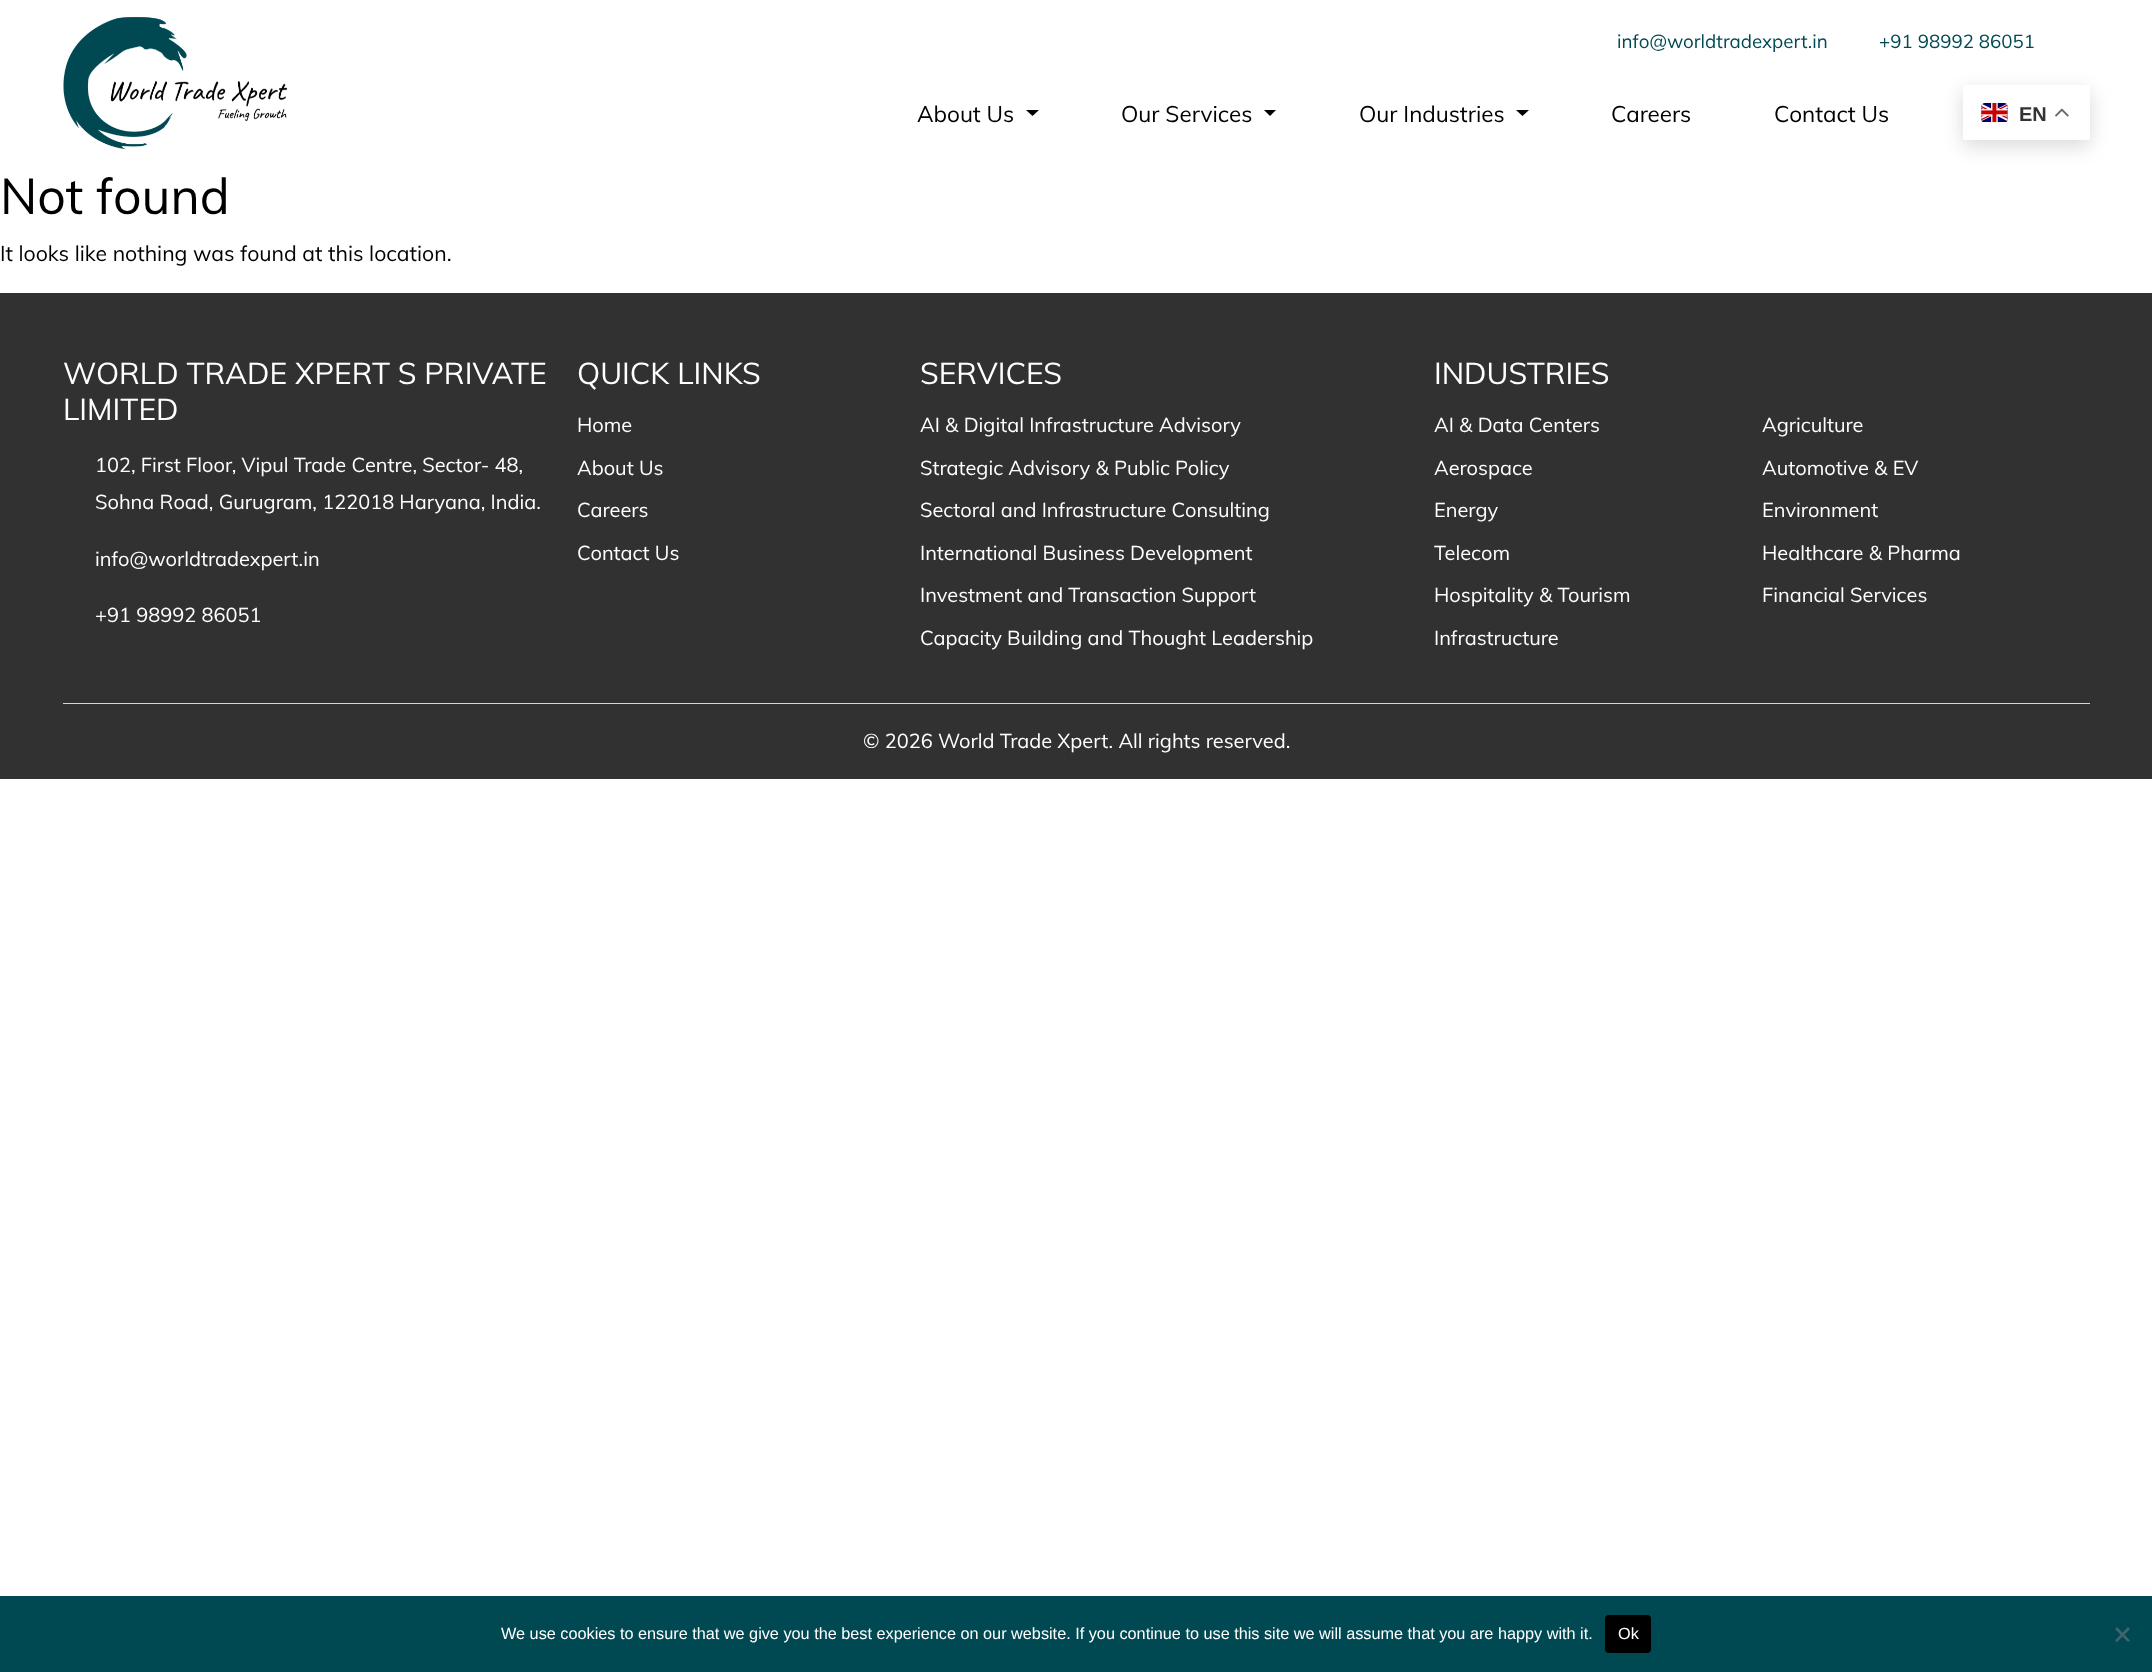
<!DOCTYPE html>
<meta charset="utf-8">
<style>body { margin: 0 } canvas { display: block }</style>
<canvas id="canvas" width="2152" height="1672"></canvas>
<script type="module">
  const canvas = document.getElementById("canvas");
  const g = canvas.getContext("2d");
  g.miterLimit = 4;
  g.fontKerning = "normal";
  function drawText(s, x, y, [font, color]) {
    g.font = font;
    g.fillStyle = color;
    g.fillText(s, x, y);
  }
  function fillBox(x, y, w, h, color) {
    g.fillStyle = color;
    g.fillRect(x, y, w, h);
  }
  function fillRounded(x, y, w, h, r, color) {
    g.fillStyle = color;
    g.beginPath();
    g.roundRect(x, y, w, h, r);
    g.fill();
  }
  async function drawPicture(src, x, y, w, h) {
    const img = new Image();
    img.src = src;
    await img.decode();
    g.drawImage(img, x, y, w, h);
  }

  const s1 = ["18.75px Muli", "#004953"];
  const s2 = ["22.5px Muli", "#000000"];
  const s3 = ["bold 20px Liberation Sans", "#333333"];
  const s4 = ["50px Muli", "#000000"];
  const s5 = ["21.25px Muli", "#000000"];
  const s6 = ["30px Muli", "#FFFFFF"];
  const s7 = ["20px Muli", "#FFFFFF"];
  const s8 = ["16.25px Liberation Sans", "#FFFFFF"];

  fillBox(0, 0, 2152, 1672, "#FFFFFF");
  await drawPicture("pic1.png", 63, 17, 225, 133);
  drawText("info@worldtradexpert.in", 1617, 48, s1);
  drawText("+91 98992 86051", 1879, 48, s1);
  drawText("About Us", 917, 122, s2);
  g.beginPath();
  g.moveTo(1026, 110);
  g.lineTo(1039, 110);
  g.lineTo(1032.5, 116);
  g.closePath();
  g.fill();
  drawText("Our Services", 1121, 122, s2);
  g.beginPath();
  g.moveTo(1264, 110);
  g.lineTo(1276, 110);
  g.lineTo(1270, 116);
  g.closePath();
  g.fill();
  drawText("Our Industries", 1359, 122, s2);
  g.beginPath();
  g.moveTo(1516, 110);
  g.lineTo(1529, 110);
  g.lineTo(1522.5, 116);
  g.closePath();
  g.fill();
  drawText("Careers", 1611, 122, s2);
  drawText("Contact Us", 1774, 122, s2);
  g.fillStyle = "rgba(0, 0, 0, 0.15)";
  g.filter = "blur(9.5px)";
  g.beginPath();
  g.roundRect(1963, 91, 127, 55, 2.5);
  g.fill();
  g.filter = "none";
  fillRounded(1963, 85, 127, 55, 2.5, "#FFFFFF");
  await drawPicture("pic2.png", 1981, 103, 27, 20);
  drawText("EN", 2019, 121, s3);
  await drawPicture("pic3.png", 2055, 108, 14, 9);
  drawText("Not found", 0, 214, s4);
  drawText("It looks like nothing was found at this location.", 0, 261, s5);
  fillBox(0, 293, 2152, 486, "#313131");
  drawText("WORLD TRADE XPERT S PRIVATE", 63, 384, s6);
  drawText("LIMITED", 63, 420, s6);
  drawText("102, First Floor, Vipul Trade Centre, Sector- 48,", 95, 472, s7);
  drawText("Sohna Road, Gurugram, 122018 Haryana, India.", 95, 509, s7);
  drawText("info@worldtradexpert.in", 95, 566, s7);
  drawText("+91 98992 86051", 95, 622, s7);
  drawText("QUICK LINKS", 577, 384, s6);
  drawText("Home", 577, 432, s7);
  drawText("About Us", 577, 475, s7);
  drawText("Careers", 577, 517, s7);
  drawText("Contact Us", 577, 560, s7);
  drawText("SERVICES", 920, 384, s6);
  drawText("AI & Digital Infrastructure Advisory", 920, 432, s7);
  drawText("Strategic Advisory & Public Policy", 920, 475, s7);
  drawText("Sectoral and Infrastructure Consulting", 920, 517, s7);
  drawText("International Business Development", 920, 560, s7);
  drawText("Investment and Transaction Support", 920, 602, s7);
  drawText("Capacity Building and Thought Leadership", 920, 645, s7);
  drawText("INDUSTRIES", 1434, 384, s6);
  drawText("AI & Data Centers", 1434, 432, s7);
  drawText("Agriculture", 1762, 432, s7);
  drawText("Aerospace", 1434, 475, s7);
  drawText("Automotive & EV", 1762, 475, s7);
  drawText("Energy", 1434, 517, s7);
  drawText("Environment", 1762, 517, s7);
  drawText("Telecom", 1434, 560, s7);
  drawText("Healthcare & Pharma", 1762, 560, s7);
  drawText("Hospitality & Tourism", 1434, 602, s7);
  drawText("Financial Services", 1762, 602, s7);
  drawText("Infrastructure", 1434, 645, s7);
  fillBox(63, 703, 2027, 1, "#D5D5D5");
  drawText("© 2026 World Trade Xpert. All rights reserved.", 863, 748, s7);
  fillBox(0, 1596, 2152, 76, "#004953");
  drawText("We use cookies to ensure that we give you the best experience on our website. If you continue to use this site we will assume that you are happy with it.", 501, 1639, s8);
  fillRounded(1605, 1615, 46, 38, 4, "#000000");
  drawText("Ok", 1618, 1639, s8);
  g.fillStyle = "#40656A";
  g.beginPath();
  g.moveTo(2128, 1627);
  g.lineTo(2130, 1629);
  g.lineTo(2117, 1642);
  g.lineTo(2115, 1640.5);
  g.closePath();
  g.fill();
  g.beginPath();
  g.moveTo(2115, 1629);
  g.lineTo(2117, 1627);
  g.lineTo(2130, 1640.5);
  g.lineTo(2128, 1642);
  g.closePath();
  g.fill();
</script>
